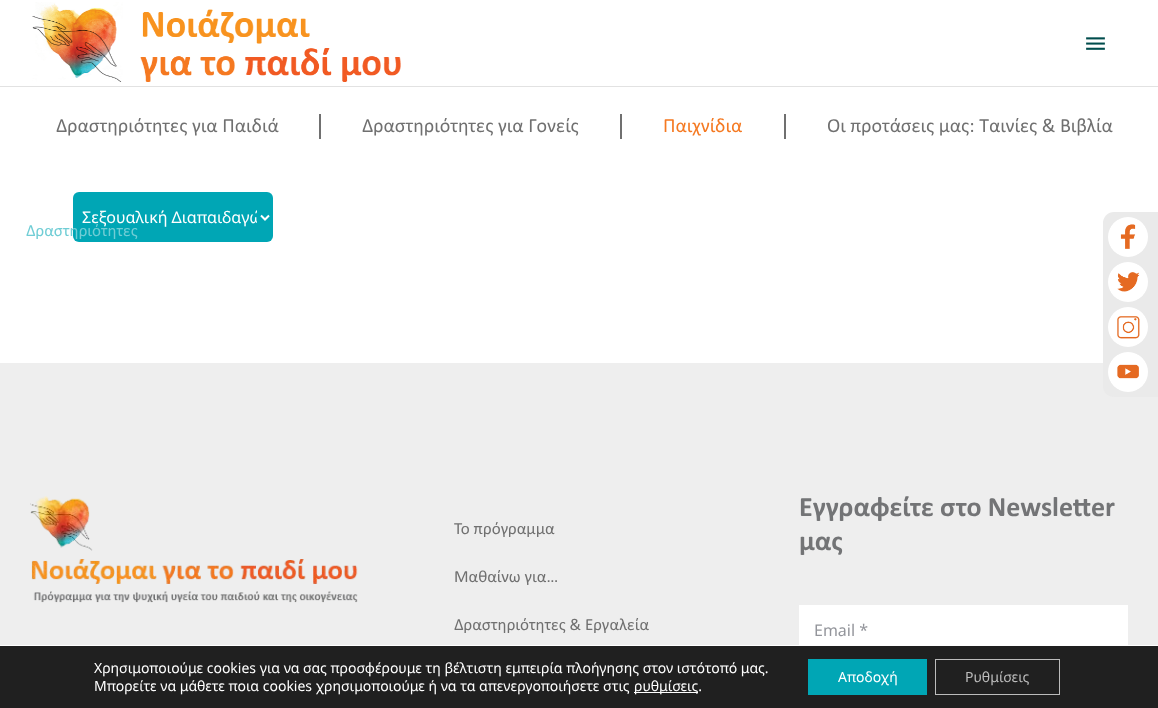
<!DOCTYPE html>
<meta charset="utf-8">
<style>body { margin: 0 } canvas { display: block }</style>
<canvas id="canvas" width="1158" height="708"></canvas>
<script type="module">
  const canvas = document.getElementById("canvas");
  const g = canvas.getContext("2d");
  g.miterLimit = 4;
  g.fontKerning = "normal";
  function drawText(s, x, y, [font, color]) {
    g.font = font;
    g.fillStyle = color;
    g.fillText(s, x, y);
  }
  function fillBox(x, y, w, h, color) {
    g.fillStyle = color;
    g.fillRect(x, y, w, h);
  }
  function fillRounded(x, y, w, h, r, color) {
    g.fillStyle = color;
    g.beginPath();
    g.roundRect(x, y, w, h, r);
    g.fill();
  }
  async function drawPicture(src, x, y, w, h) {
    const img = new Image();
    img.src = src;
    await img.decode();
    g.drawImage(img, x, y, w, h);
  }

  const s1 = ["20px Calibri", "#707070"];
  const s2 = ["20px Calibri", "#F57921"];
  const s3 = ["17px Calibri", "#70CDD5"];
  const s4 = ["16px Noto Sans", "#FFFFFF"];
  const s5 = ["17px Calibri", "#707070"];
  const s6 = ["bold 28px Calibri", "#737476"];
  const s7 = ["16px Noto Sans", "#93959B"];
  const s8 = ["14px Noto Sans", "#FFFFFF"];
  const s9 = ["14px Noto Sans", "#BCBCBC"];

  fillBox(0, 0, 1158, 708, "#FFFFFF");
  drawText("Δραστηριότητες για Παιδιά", 56, 132, s1);
  fillBox(319, 114, 2, 25, "#707070");
  drawText("Δραστηριότητες για Γονείς", 362, 132, s1);
  fillBox(620, 114, 2, 25, "#707070");
  drawText("Παιχνίδια", 663, 132, s2);
  fillBox(784, 114, 2, 25, "#707070");
  drawText("Οι προτάσεις μας: Ταινίες & Βιβλία", 827, 132, s1);
  fillBox(0, 86, 1158, 1, "#E2E2E2");
  await drawPicture("pic1.png", 32, 2, 369, 80);
  await drawPicture("pic2.png", 1086, 37, 19, 13);
  fillRounded(73, 192, 200, 50, 6, "#00A6B5");
  drawText("Δραστηριότητες", 26, 236, s3);
  g.beginPath();
  g.moveTo(261, 215.5);
  g.lineTo(265, 219.5);
  g.lineTo(269, 215.5);
  g.strokeStyle = "#FFFFFF";
  g.lineWidth = 2;
  g.stroke();
  g.save();
  g.beginPath();
  g.rect(82, 205, 175, 24);
  g.clip();
  drawText("Σεξουαλική Διαπαιδαγώ", 82, 223, s4);
  g.restore();
  fillBox(0, 363, 1158, 282, "#EEEEEE");
  g.fillStyle = "#EAEAEA";
  g.beginPath();
  g.roundRect(1103, 212, 55, 185, [11, 0, 0, 11]);
  g.fill();
  await drawPicture("pic3.png", 1108, 217, 40, 40);
  await drawPicture("pic4.png", 1108, 262, 40, 40);
  await drawPicture("pic5.png", 1108, 307, 40, 40);
  await drawPicture("pic6.png", 1108, 352, 40, 40);
  await drawPicture("pic7.png", 30, 496, 328, 107);
  drawText("Το πρόγραμμα", 454, 534, s5);
  drawText("Μαθαίνω για…", 454, 582, s5);
  drawText("Δραστηριότητες & Εργαλεία", 454, 630, s5);
  drawText("Εγγραφείτε στο Newsletter", 799, 516, s6);
  drawText("μας", 799, 550, s6);
  fillBox(799, 605, 329, 40, "#FFFFFF");
  drawText("Email *", 814, 636, s7);
  fillBox(0, 646, 1158, 62, "#202020");
  drawText("Χρησιμοποιούμε cookies για να σας προσφέρουμε τη βέλτιστη εμπειρία πλοήγησης στον ιστότοπό μας.", 94, 673, s8);
  drawText("Μπορείτε να μάθετε ποια cookies χρησιμοποιούμε ή να τα απενεργοποιήσετε στις", 94, 691, s8);
  fillBox(634, 692, 64, 1, "#FFFFFF");
  drawText("ρυθμίσεις.", 634, 691, s8);
  fillBox(808, 659, 119, 36, "#00A6B5");
  drawText("Αποδοχή", 838, 682, s8);
  g.strokeStyle = "#BCBCBC";
  g.lineWidth = 1;
  g.strokeRect(935.5, 659.5, 124, 35);
  drawText("Ρυθμίσεις", 965, 682, s9);
</script>
